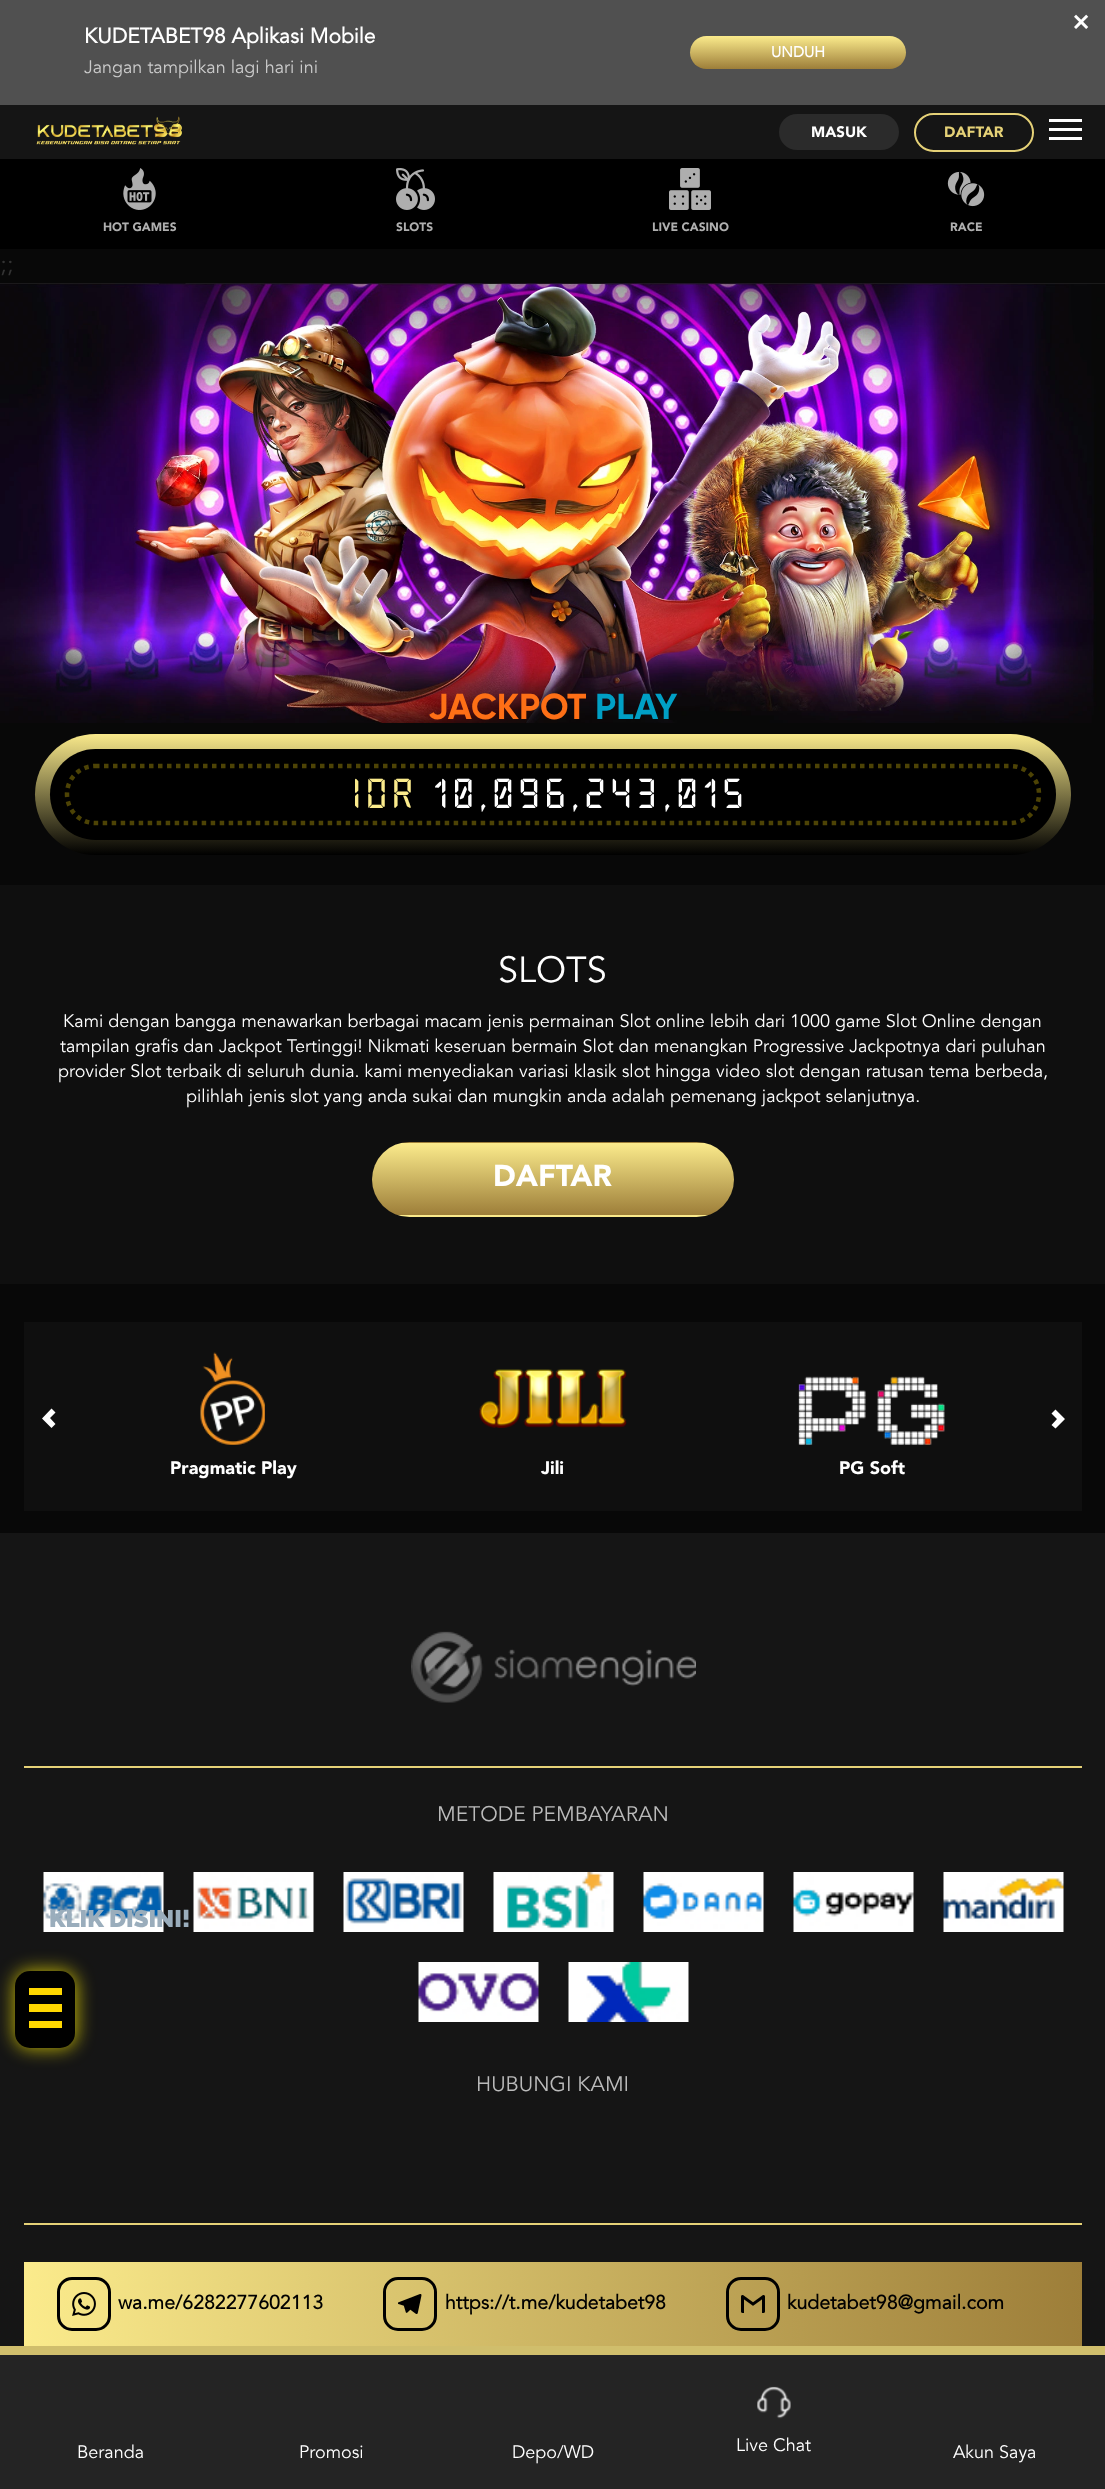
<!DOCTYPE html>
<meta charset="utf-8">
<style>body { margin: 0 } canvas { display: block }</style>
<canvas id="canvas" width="1105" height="2489"></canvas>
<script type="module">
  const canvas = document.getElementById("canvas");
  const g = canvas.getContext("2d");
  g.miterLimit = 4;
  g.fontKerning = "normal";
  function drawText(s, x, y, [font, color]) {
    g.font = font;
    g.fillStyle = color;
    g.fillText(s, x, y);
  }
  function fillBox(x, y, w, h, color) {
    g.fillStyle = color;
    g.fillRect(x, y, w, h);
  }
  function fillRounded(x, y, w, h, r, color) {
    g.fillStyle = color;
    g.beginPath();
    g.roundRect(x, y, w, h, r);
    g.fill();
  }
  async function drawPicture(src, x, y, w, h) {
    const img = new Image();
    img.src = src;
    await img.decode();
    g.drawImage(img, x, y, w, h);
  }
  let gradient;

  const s1 = ["bold 32px Avenir", "#FFFFFF"];
  const s2 = ["bold 21px Avenir", "#FFFFFF"];
  const s3 = ["18px Avenir", "#CBCBCB"];
  const s4 = ["bold 15px Avenir", "#FFFFFF"];
  const s5 = ["900 15px Avenir", "#FFFFFF"];
  const s6 = ["900 15px Avenir", "#E5D177"];
  const s7 = ["900 12px Avenir", "#AFAFAF"];
  const s8 = ["24px Avenir", "#333333"];
  const s9 = ["bold 36px Gilroy", "#FD6F16"];
  const s10 = ["bold 36px Gilroy", "#009FC5"];
  const s11 = ["42px 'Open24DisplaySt'", "#FBEB8C"];
  const s12 = ["42px 'Open24DisplaySt'", "#FFFFFF"];
  const s13 = ["36px Avenir", "#FFFFFF"];
  const s14 = ["18px Avenir", "#FFFFFF"];
  const s15 = ["900 30px Avenir", "#FFFFFF"];
  const s16 = ["900 18px Avenir", "#FFFFFF"];
  const s17 = ["21px Avenir", "#BBBBBB"];
  const s18 = ["bold 19.5px Avenir", "#000000"];
  const s19 = ["100 24px Raleway", "#9AADBC"];

  fillBox(0, 0, 1105, 2489, "#080808");
  fillBox(0, 105, 1105, 54, "#151515");
  fillBox(0, 0, 1105, 105, "#505050");
  drawText("×", 1070, 32, s1);
  drawText("KUDETABET98 Aplikasi Mobile", 84, 43, s2);
  drawText("Jangan tampilkan lagi hari ini", 84, 73, s3);
  gradient = g.createLinearGradient(798, 36, 798, 69);
  gradient.addColorStop(0, "#FBEB8C");
  gradient.addColorStop(1, "#9D7E39");
  g.fillStyle = gradient;
  g.beginPath();
  g.roundRect(690, 36, 216, 33, 16.5);
  g.fill();
  drawText("UNDUH", 771, 57, s4);
  await drawPicture("pic1.png", 36, 116, 146, 29);
  fillRounded(779, 114, 120, 36, 18, "#2B2B2B");
  drawText("MASUK", 811, 137, s5);
  g.beginPath();
  g.roundRect(915, 114, 118, 37, 18.5);
  g.strokeStyle = "#E5D177";
  g.lineWidth = 2;
  g.stroke();
  drawText("DAFTAR", 944, 137, s6);
  fillBox(1049, 119, 33, 3, "#FFFFFF");
  fillBox(1049, 128, 33, 3, "#FFFFFF");
  fillBox(1049, 137, 33, 3, "#FFFFFF");
  fillBox(0, 159, 1105, 90, "#000000");
  await drawPicture("pic2.png", 123, 168, 33, 42);
  drawText("HOT GAMES", 103, 231, s7);
  await drawPicture("pic3.png", 396, 168, 39, 42);
  drawText("SLOTS", 396, 231, s7);
  await drawPicture("pic4.png", 669, 168, 42, 42);
  drawText("LIVE CASINO", 652, 231, s7);
  await drawPicture("pic5.png", 947, 171, 38, 36);
  drawText("RACE", 950, 231, s7);
  drawText(";;", 0, 272, s8);
  await drawPicture("pic6.png", 0, 283, 1105, 440);
  drawText("JACKPOT", 428, 719, s9);
  drawText("PLAY", 595, 719, s10);
  gradient = g.createLinearGradient(553, 733, 553, 855);
  gradient.addColorStop(0, "#FBEB8C");
  gradient.addColorStop(1, "#000000");
  g.fillStyle = gradient;
  g.beginPath();
  g.roundRect(35, 734, 1036, 121, 60.5);
  g.fill();
  fillRounded(50, 749, 1006, 91, 45.5, "#000000");
  g.beginPath();
  g.moveTo(95, 766);
  g.lineTo(1010, 766);
  g.bezierCurveTo(1026, 766, 1039, 778.5, 1039, 794);
  g.bezierCurveTo(1039, 810, 1026, 823, 1010, 823);
  g.lineTo(95, 823);
  g.bezierCurveTo(79.5, 823, 67, 810, 67, 794);
  g.bezierCurveTo(67, 778.5, 79.5, 766, 95, 766);
  g.closePath();
  g.strokeStyle = "#4D4305";
  g.lineWidth = 4.5;
  g.setLineDash([4.5, 4.5]);
  g.stroke();
  g.letterSpacing = "7.5px";
  drawText("IDR", 355, 808, s11);
  drawText("10,096,243,015", 435, 808, s12);
  fillBox(0, 885, 1105, 399, "#0F0F0F");
  g.letterSpacing = "0px";
  drawText("SLOTS", 498, 982, s13);
  drawText("Kami dengan bangga menawarkan berbagai macam jenis permainan Slot online lebih dari 1000 game Slot Online dengan", 63, 1027, s14);
  drawText("tampilan grafis dan Jackpot Tertinggi! Nikmati keseruan bermain Slot dan menangkan Progressive Jackpotnya dari puluhan", 60, 1052, s14);
  drawText("provider Slot terbaik di seluruh dunia. kami menyediakan variasi klasik slot hingga video slot dengan ratusan tema berbeda,", 58, 1077, s14);
  drawText("pilihlah jenis slot yang anda sukai dan mungkin anda adalah pemenang jackpot selanjutnya.", 186, 1102, s14);
  g.save();
  g.beginPath();
  g.roundRect(372, 1142, 362, 75, 37.5);
  g.clip();
  gradient = g.createLinearGradient(553, 1071, 553, 1143);
  gradient.addColorStop(0, "#FBEB8C");
  gradient.addColorStop(1, "#9D7E39");
  g.fillStyle = gradient;
  g.fillRect(401, 1142, 304, 1);
  gradient = g.createLinearGradient(553, 1143, 553, 1215);
  gradient.addColorStop(0, "#FBEB8C");
  gradient.addColorStop(1, "#9D7E39");
  g.fillStyle = gradient;
  g.fillRect(372, 1143, 362, 72);
  gradient = g.createLinearGradient(553, 1215, 553, 1287);
  gradient.addColorStop(0, "#FBEB8C");
  gradient.addColorStop(1, "#9D7E39");
  g.fillStyle = gradient;
  g.fillRect(397, 1215, 312, 2);
  g.restore();
  drawText("DAFTAR", 493, 1186, s15);
  fillBox(24, 1322, 1058, 189, "#0F0F0F");
  g.fillStyle = "#FFFFFF";
  g.beginPath();
  g.moveTo(51.5, 1428);
  g.lineTo(55.5, 1424);
  g.lineTo(50, 1418);
  g.lineTo(55.5, 1412.5);
  g.lineTo(51.5, 1408.5);
  g.lineTo(42, 1418.5);
  g.closePath();
  g.fill();
  g.beginPath();
  g.moveTo(1055.5, 1428.5);
  g.lineTo(1051.5, 1425);
  g.lineTo(1057, 1419);
  g.lineTo(1051.5, 1413.5);
  g.lineTo(1055.5, 1409.5);
  g.lineTo(1065, 1419);
  g.closePath();
  g.fill();
  await drawPicture("pic7.png", 200, 1352, 65, 93);
  drawText("Pragmatic Play", 170, 1474, s16);
  await drawPicture("pic8.png", 479, 1369, 148, 59);
  drawText("Jili", 541, 1474, s16);
  await drawPicture("pic9.png", 798, 1376, 147, 69);
  drawText("PG Soft", 839, 1474, s16);
  fillBox(0, 1533, 1105, 813, "#151515");
  await drawPicture("pic10.png", 411, 1631, 285, 72);
  fillBox(24, 1766, 1058, 2, "#E5D177");
  drawText("METODE PEMBAYARAN", 437, 1821, s17);
  await drawPicture("pic11.png", 43, 1872, 121, 60);
  await drawPicture("pic12.png", 193, 1872, 121, 60);
  await drawPicture("pic13.png", 343, 1872, 121, 60);
  await drawPicture("pic14.png", 493, 1872, 121, 60);
  await drawPicture("pic15.png", 643, 1872, 121, 60);
  await drawPicture("pic16.png", 793, 1872, 121, 60);
  await drawPicture("pic17.png", 943, 1872, 121, 60);
  await drawPicture("pic18.png", 418, 1962, 121, 60);
  await drawPicture("pic19.png", 568, 1962, 121, 60);
  drawText("HUBUNGI KAMI", 476, 2091, s17);
  fillBox(24, 2223, 1058, 2, "#E5D177");
  gradient = g.createLinearGradient(24, 2339, 1082, 2339);
  gradient.addColorStop(0, "#FBEB8C");
  gradient.addColorStop(1, "#9D7E39");
  g.fillStyle = gradient;
  g.fillRect(24, 2262, 1058, 84);
  g.beginPath();
  g.roundRect(58.5, 2278.5, 51, 51, 13.5);
  g.strokeStyle = "#000000";
  g.lineWidth = 3;
  g.setLineDash([]);
  g.stroke();
  await drawPicture("pic20.png", 72, 2292, 24, 24);
  drawText("wa.me/6282277602113", 118, 2309, s18);
  g.beginPath();
  g.roundRect(384.5, 2278.5, 51, 51, 13.5);
  g.stroke();
  await drawPicture("pic21.png", 398, 2294, 24, 20);
  drawText("https://t.me/kudetabet98", 445, 2309, s18);
  g.beginPath();
  g.roundRect(727.5, 2278.5, 51, 51, 13.5);
  g.stroke();
  await drawPicture("pic22.png", 741, 2295, 24, 18);
  drawText("kudetabet98@gmail.com", 787, 2309, s18);
  drawText("KLIK DISINI!", 49, 1927, s19);
  g.fillStyle = "rgba(255, 238, 0, 0.7)";
  g.filter = "blur(9px)";
  g.beginPath();
  g.roundRect(14, 1970, 63, 79, 17);
  g.fill();
  g.filter = "none";
  fillRounded(15, 1971, 60, 77, 15, "#000000");
  fillBox(29, 1988, 33, 7, "#FFD700");
  fillBox(29, 2004, 33, 8, "#FFD700");
  fillBox(29, 2021, 33, 7, "#FFD700");
  fillBox(0, 2355, 1105, 134, "#242424");
  fillBox(0, 2346, 1105, 9, "#D0BE6C");
  drawText("Beranda", 77, 2458, s14);
  drawText("Promosi", 299, 2458, s14);
  drawText("Depo/WD", 512, 2458, s14);
  await drawPicture("pic23.png", 757, 2386, 34, 33);
  drawText("Live Chat", 736, 2451, s14);
  drawText("Akun Saya", 953, 2458, s14);
</script>
